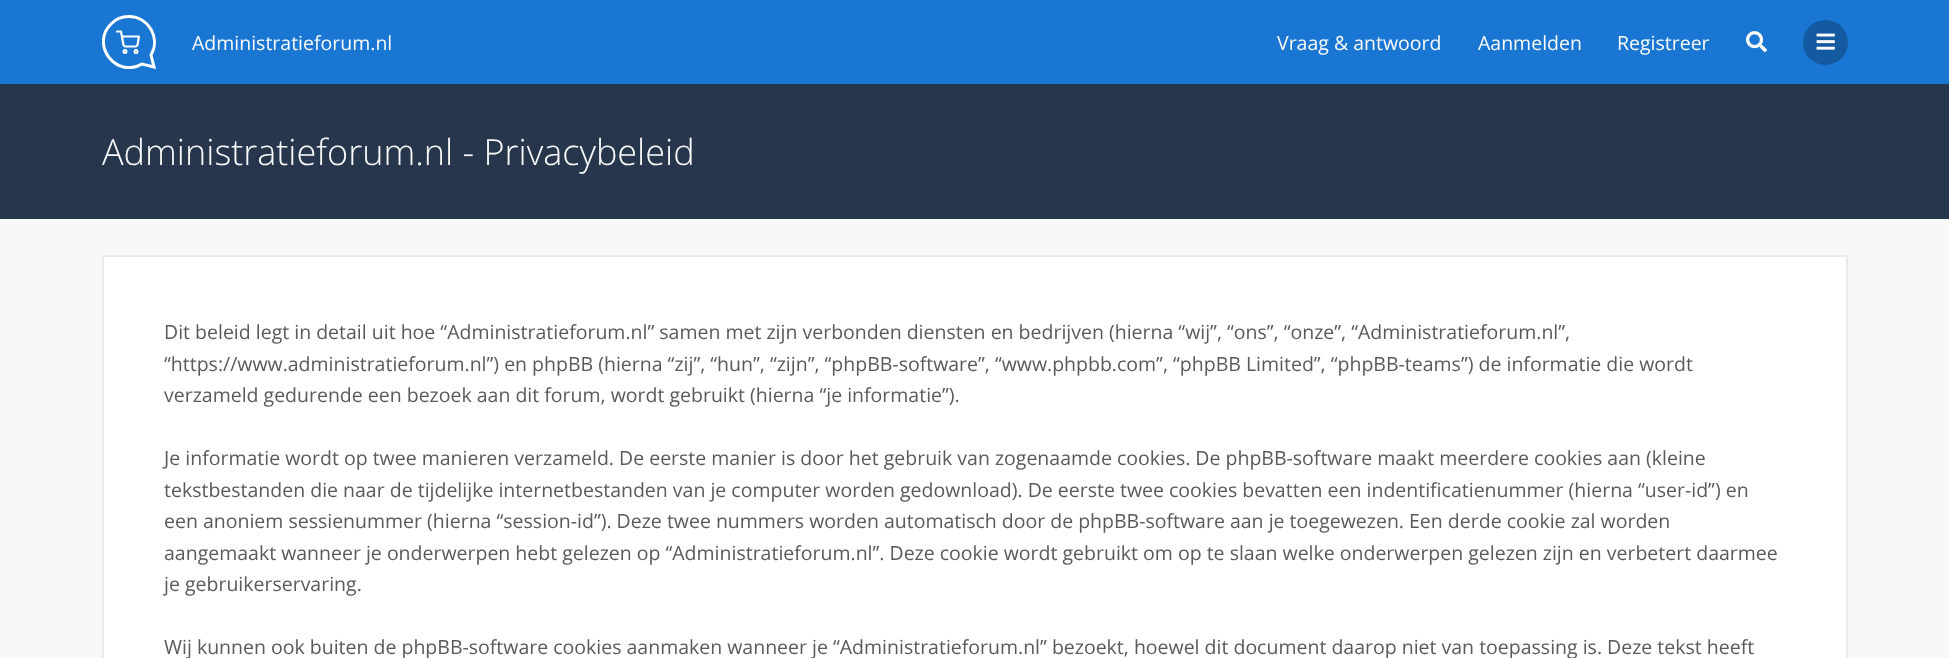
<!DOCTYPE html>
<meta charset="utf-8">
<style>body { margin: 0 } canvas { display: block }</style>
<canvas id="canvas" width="1949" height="658"></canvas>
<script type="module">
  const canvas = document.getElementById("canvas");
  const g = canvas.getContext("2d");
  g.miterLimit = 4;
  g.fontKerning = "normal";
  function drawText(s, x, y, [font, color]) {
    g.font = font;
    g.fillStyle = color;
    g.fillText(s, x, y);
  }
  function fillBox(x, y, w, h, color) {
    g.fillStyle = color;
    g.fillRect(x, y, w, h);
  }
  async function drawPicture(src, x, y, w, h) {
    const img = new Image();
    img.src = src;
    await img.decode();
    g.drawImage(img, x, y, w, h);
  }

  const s1 = ["19.5px Open Sans", "#FAFAFA"];
  const s2 = ["300 36px Open Sans", "#FAFAFA"];
  const s3 = ["19.5px Open Sans", "#5A5A5A"];

  fillBox(0, 0, 1949, 658, "#F8F8F8");
  fillBox(0, 0, 1949, 84, "#1976D2");
  g.save();
  g.beginPath();
  g.rect(102, 15, 54, 54);
  g.clip();
  g.beginPath();
  g.moveTo(129, 16.5);
  g.bezierCurveTo(148.5, 16.5, 161, 38.5, 151, 55);
  g.lineTo(154, 67);
  g.lineTo(142, 64);
  g.bezierCurveTo(116.5, 79, 90, 45, 111, 24);
  g.bezierCurveTo(115.5, 19, 122.5, 16.5, 129, 16.5);
  g.closePath();
  g.strokeStyle = "#FFFFFF";
  g.lineWidth = 3;
  g.stroke();
  g.restore();
  g.beginPath();
  g.arc(125, 51.5, 1.5, 0, Math.PI * 2);
  g.strokeStyle = "#FFFFFF";
  g.lineWidth = 2;
  g.stroke();
  g.beginPath();
  g.arc(136, 51.5, 1.5, 0, Math.PI * 2);
  g.stroke();
  g.beginPath();
  g.moveTo(117, 31.5);
  g.lineTo(121, 31.5);
  g.lineTo(123.5, 45);
  g.bezierCurveTo(124, 46, 124.5, 46.5, 125.5, 46.5);
  g.lineTo(135.5, 46.5);
  g.bezierCurveTo(136.5, 46.5, 137, 46, 137.5, 45);
  g.lineTo(139, 36.5);
  g.lineTo(122, 36.5);
  g.lineWidth = 2.2;
  g.lineCap = "round";
  g.lineJoin = "round";
  g.stroke();
  drawText("Administratieforum.nl", 192, 50, s1);
  drawText("Vraag & antwoord", 1277, 50, s1);
  drawText("Aanmelden", 1478, 50, s1);
  drawText("Registreer", 1617, 50, s1);
  await drawPicture("pic1.png", 1746, 31, 21, 22);
  g.fillStyle = "#135AA0";
  g.beginPath();
  g.arc(1825.5, 42.5, 22.5, 0, Math.PI * 2);
  g.fill();
  await drawPicture("pic2.png", 1816, 33, 19, 17);
  fillBox(0, 84, 1949, 135, "#26364D");
  drawText("Administratieforum.nl - Privacybeleid", 102, 165, s2);
  g.fillStyle = "#FFFFFF";
  g.beginPath();
  g.roundRect(103, 256, 1744, 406, 2);
  g.fill();
  g.strokeStyle = "#EAEAEA";
  g.lineWidth = 2;
  g.lineJoin = "miter";
  g.stroke();
  drawText("Dit beleid legt in detail uit hoe “Administratieforum.nl” samen met zijn verbonden diensten en bedrijven (hierna “wij”, “ons”, “onze”, “Administratieforum.nl”,", 164, 339, s3);
  drawText("“https://www.administratieforum.nl”) en phpBB (hierna “zij”, “hun”, “zijn”, “phpBB-software”, “www.phpbb.com”, “phpBB Limited”, “phpBB-teams”) de informatie die wordt", 164, 371, s3);
  drawText("verzameld gedurende een bezoek aan dit forum, wordt gebruikt (hierna “je informatie”).", 164, 402, s3);
  drawText("Je informatie wordt op twee manieren verzameld. De eerste manier is door het gebruik van zogenaamde cookies. De phpBB-software maakt meerdere cookies aan (kleine", 164, 465, s3);
  drawText("tekstbestanden die naar de tijdelijke internetbestanden van je computer worden gedownload). De eerste twee cookies bevatten een indentificatienummer (hierna “user-id”) en", 164, 497, s3);
  drawText("een anoniem sessienummer (hierna “session-id”). Deze twee nummers worden automatisch door de phpBB-software aan je toegewezen. Een derde cookie zal worden", 164, 528, s3);
  drawText("aangemaakt wanneer je onderwerpen hebt gelezen op “Administratieforum.nl”. Deze cookie wordt gebruikt om op te slaan welke onderwerpen gelezen zijn en verbetert daarmee", 164, 560, s3);
  drawText("je gebruikerservaring.", 164, 591, s3);
  drawText("Wij kunnen ook buiten de phpBB-software cookies aanmaken wanneer je “Administratieforum.nl” bezoekt, hoewel dit document daarop niet van toepassing is. Deze tekst heeft", 164, 654, s3);
</script>
